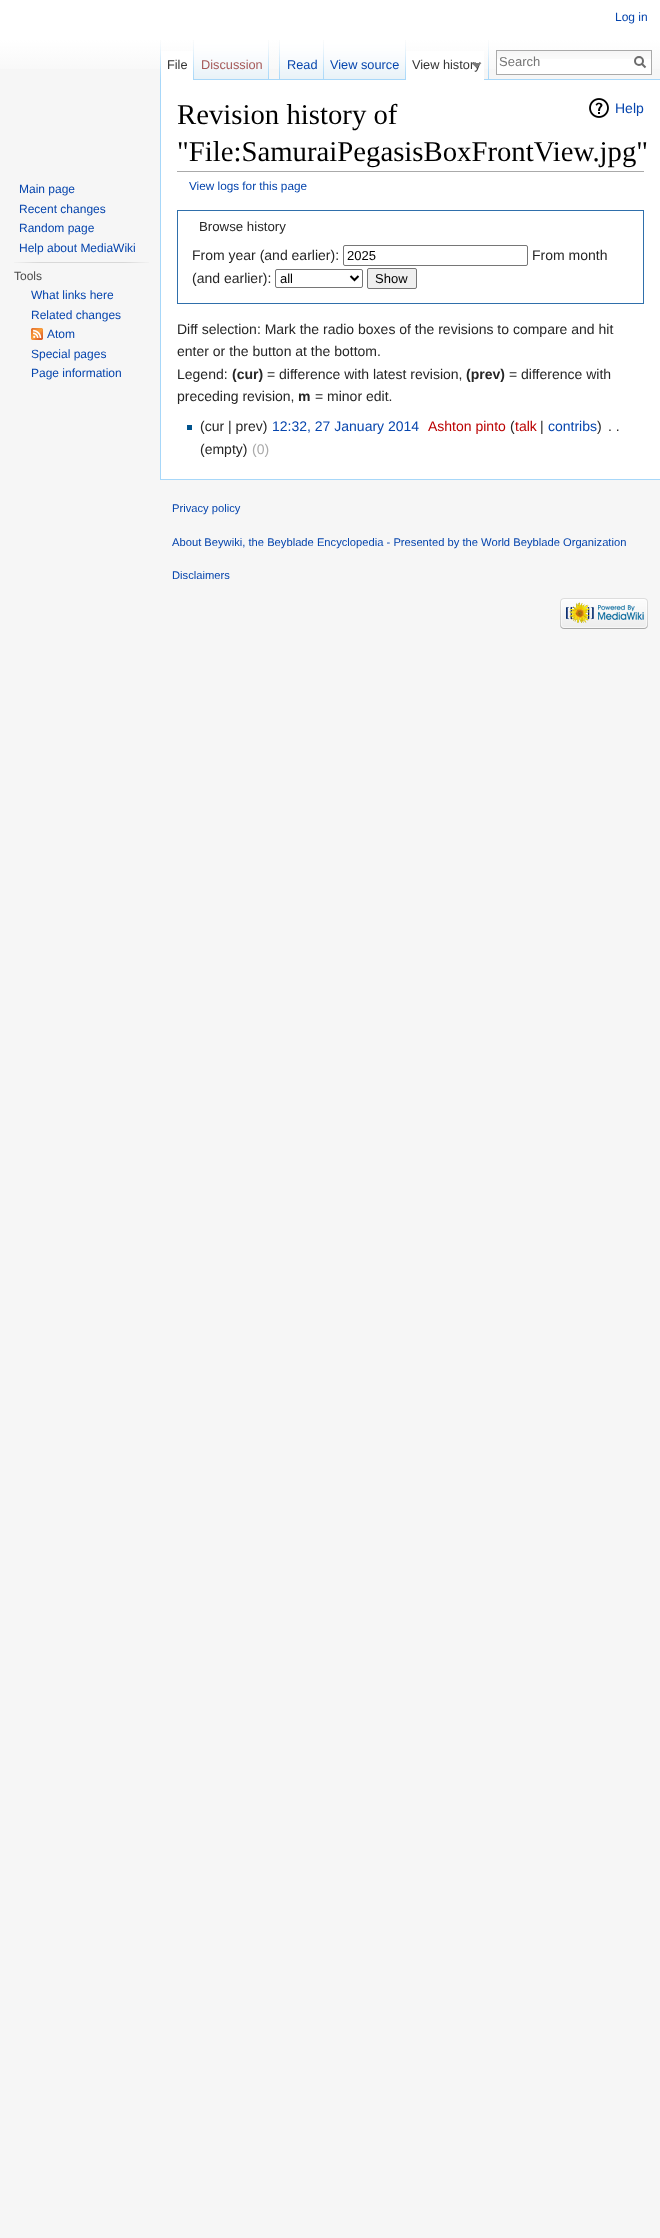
<!DOCTYPE html>
<meta charset="utf-8">
<style>body { margin: 0 } canvas { display: block }</style>
<canvas id="canvas" width="660" height="2238"></canvas>
<script type="module">
  const canvas = document.getElementById("canvas");
  const g = canvas.getContext("2d");
  g.miterLimit = 4;
  g.fontKerning = "normal";
  function drawText(s, x, y, [font, color]) {
    g.font = font;
    g.fillStyle = color;
    g.fillText(s, x, y);
  }
  function fillBox(x, y, w, h, color) {
    g.fillStyle = color;
    g.fillRect(x, y, w, h);
  }
  async function drawPicture(src, x, y, w, h) {
    const img = new Image();
    img.src = src;
    await img.decode();
    g.drawImage(img, x, y, w, h);
  }
  let gradient;

  const s1 = ["12px Liberation Sans", "#0645AD"];
  const s2 = ["12.75px Liberation Sans", "#333333"];
  const s3 = ["12.75px Liberation Sans", "#A55858"];
  const s4 = ["13px Liberation Sans", "#757575"];
  const s5 = ["12.75px Liberation Sans", "#0645AD"];
  const s6 = ["12px Liberation Sans", "#4D4D4D"];
  const s7 = ["14px Liberation Sans", "#0645AD"];
  const s8 = ["28.75px Liberation Serif", "#000000"];
  const s9 = ["11.75px Liberation Sans", "#0645AD"];
  const s10 = ["13.25px Liberation Sans", "#252525"];
  const s11 = ["14px Liberation Sans", "#252525"];
  const s12 = ["13px Liberation Sans", "#000000"];
  const s13 = ["bold 14px Liberation Sans", "#252525"];
  const s14 = ["14px Liberation Sans", "#BA0000"];
  const s15 = ["14px Liberation Sans", "#AAAAAA"];
  const s16 = ["11.2px Liberation Sans", "#0645AD"];

  fillBox(0, 0, 660, 2238, "#F6F6F6");
  gradient = g.createLinearGradient(330, 0, 330, 80);
  gradient.addColorStop(0.5, "#FFFFFF");
  gradient.addColorStop(1, "#F6F6F6");
  g.fillStyle = gradient;
  g.fillRect(0, 0, 660, 69);
  drawText("Log in", 615, 21, s1);
  await drawPicture("pic1.png", 160, 40, 1, 39);
  fillBox(161, 51, 32, 29, "#FFFFFF");
  await drawPicture("pic2.png", 193, 40, 1, 40);
  drawText("File", 167, 69, s2);
  await drawPicture("pic3.png", 194, 40, 75, 40);
  await drawPicture("pic4.png", 268, 40, 1, 39);
  drawText("Discussion", 201, 69, s3);
  await drawPicture("pic1.png", 488, 40, 1, 39);
  fillBox(269, 79, 391, 1, "#A7D7F9");
  fillBox(406, 51, 78, 29, "#FFFFFF");
  drawText("View history", 412, 69, s2);
  g.fillStyle = "#797979";
  g.beginPath();
  g.moveTo(481.5, 63);
  g.lineTo(476.5, 68);
  g.lineTo(471.5, 63);
  g.closePath();
  g.fill();
  fillBox(497, 59, 154, 15, "#FFFFFF");
  await drawPicture("pic5.png", 497, 51, 154, 8);
  g.strokeStyle = "#AAAAAA";
  g.strokeRect(496.5, 50.5, 155, 24);
  drawText("Search", 499, 66, s4);
  g.beginPath();
  g.moveTo(645.5, 67.5);
  g.lineTo(641.5, 63.5);
  g.strokeStyle = "#6C6C6C";
  g.lineWidth = 2;
  g.stroke();
  g.beginPath();
  g.arc(639, 61, 4, 0, Math.PI * 2);
  g.stroke();
  await drawPicture("pic1.png", 279, 40, 1, 39);
  await drawPicture("pic6.png", 280, 40, 44, 40);
  await drawPicture("pic4.png", 323, 40, 1, 39);
  drawText("Read", 287, 69, s5);
  await drawPicture("pic7.png", 324, 40, 82, 40);
  await drawPicture("pic4.png", 405, 40, 1, 39);
  drawText("View source", 330, 69, s5);
  drawText("Main page", 19, 193, s1);
  drawText("Recent changes", 19, 213, s1);
  drawText("Random page", 19, 232, s1);
  drawText("Help about MediaWiki", 19, 252, s1);
  await drawPicture("pic8.png", 14, 262, 135, 1);
  drawText("Tools", 14, 280, s6);
  drawText("What links here", 31, 299, s1);
  drawText("Related changes", 31, 319, s1);
  await drawPicture("pic9.png", 31, 328, 12, 12);
  drawText("Atom", 47, 338, s1);
  drawText("Special pages", 31, 358, s1);
  drawText("Page information", 31, 377, s1);
  fillBox(161, 80, 499, 399, "#FFFFFF");
  fillBox(160, 479, 500, 1, "#A7D7F9");
  fillBox(160, 79, 1, 401, "#A7D7F9");
  await drawPicture("pic10.png", 589, 98, 20, 20);
  drawText("Help", 615, 113, s7);
  fillBox(177, 171, 467, 1, "#AAAAAA");
  drawText("Revision history of", 177, 124, s8);
  drawText("\"File:SamuraiPegasisBoxFrontView.jpg\"", 177, 161, s8);
  drawText("View logs for this page", 189, 190, s9);
  g.strokeStyle = "#2F6FAB";
  g.lineWidth = 1;
  g.strokeRect(177.5, 210.5, 466, 93);
  drawText("Browse history", 199, 231, s10);
  drawText("From year (and earlier):", 192, 260, s11);
  g.beginPath();
  g.roundRect(343.5, 245.5, 184, 20, 1.5);
  g.strokeStyle = "#767676";
  g.stroke();
  drawText("2025", 347, 260, s12);
  drawText("From month", 532, 260, s11);
  drawText("(and earlier):", 192, 283, s11);
  g.beginPath();
  g.roundRect(275.5, 269.5, 87, 18, 1.5);
  g.stroke();
  g.beginPath();
  g.moveTo(350.5, 276);
  g.lineTo(354.5, 280);
  g.lineTo(358.5, 276);
  g.strokeStyle = "#000000";
  g.lineWidth = 2;
  g.stroke();
  drawText("all", 280, 283, s12);
  g.fillStyle = "#EFEFEF";
  g.beginPath();
  g.roundRect(367.5, 268.5, 49, 20, 1.5);
  g.fill();
  g.strokeStyle = "#767676";
  g.lineWidth = 1;
  g.stroke();
  drawText("Show", 375, 283, s12);
  drawText("Diff selection: Mark the radio boxes of the revisions to compare and hit", 177, 334, s11);
  drawText("enter or the button at the bottom.", 177, 356, s11);
  drawText("Legend:", 177, 379, s11);
  drawText("(cur)", 232, 379, s13);
  drawText("= difference with latest revision,", 267, 379, s11);
  drawText("(prev)", 466, 379, s13);
  drawText("= difference with", 509, 379, s11);
  drawText("preceding revision,", 177, 401, s11);
  drawText("m", 298, 401, s13);
  drawText("= minor edit.", 315, 401, s11);
  fillBox(187, 425, 5, 5, "#00528C");
  drawText("(cur | prev)", 200, 431, s11);
  drawText("12:32, 27 January 2014", 272, 431, s7);
  drawText("Ashton pinto", 428, 431, s14);
  drawText("(", 510, 431, s11);
  drawText("talk", 515, 431, s14);
  drawText("|", 540, 431, s11);
  drawText("contribs", 548, 431, s7);
  drawText(")", 597, 431, s11);
  drawText(". .", 608, 431, s11);
  drawText("(empty)", 200, 454, s11);
  drawText("(0)", 252, 454, s15);
  drawText("Privacy policy", 172, 512, s16);
  drawText("About Beywiki, the Beyblade Encyclopedia - Presented by the World Beyblade Organization", 172, 546, s16);
  drawText("Disclaimers", 172, 579, s16);
  await drawPicture("pic11.png", 560, 598, 88, 31);
</script>
